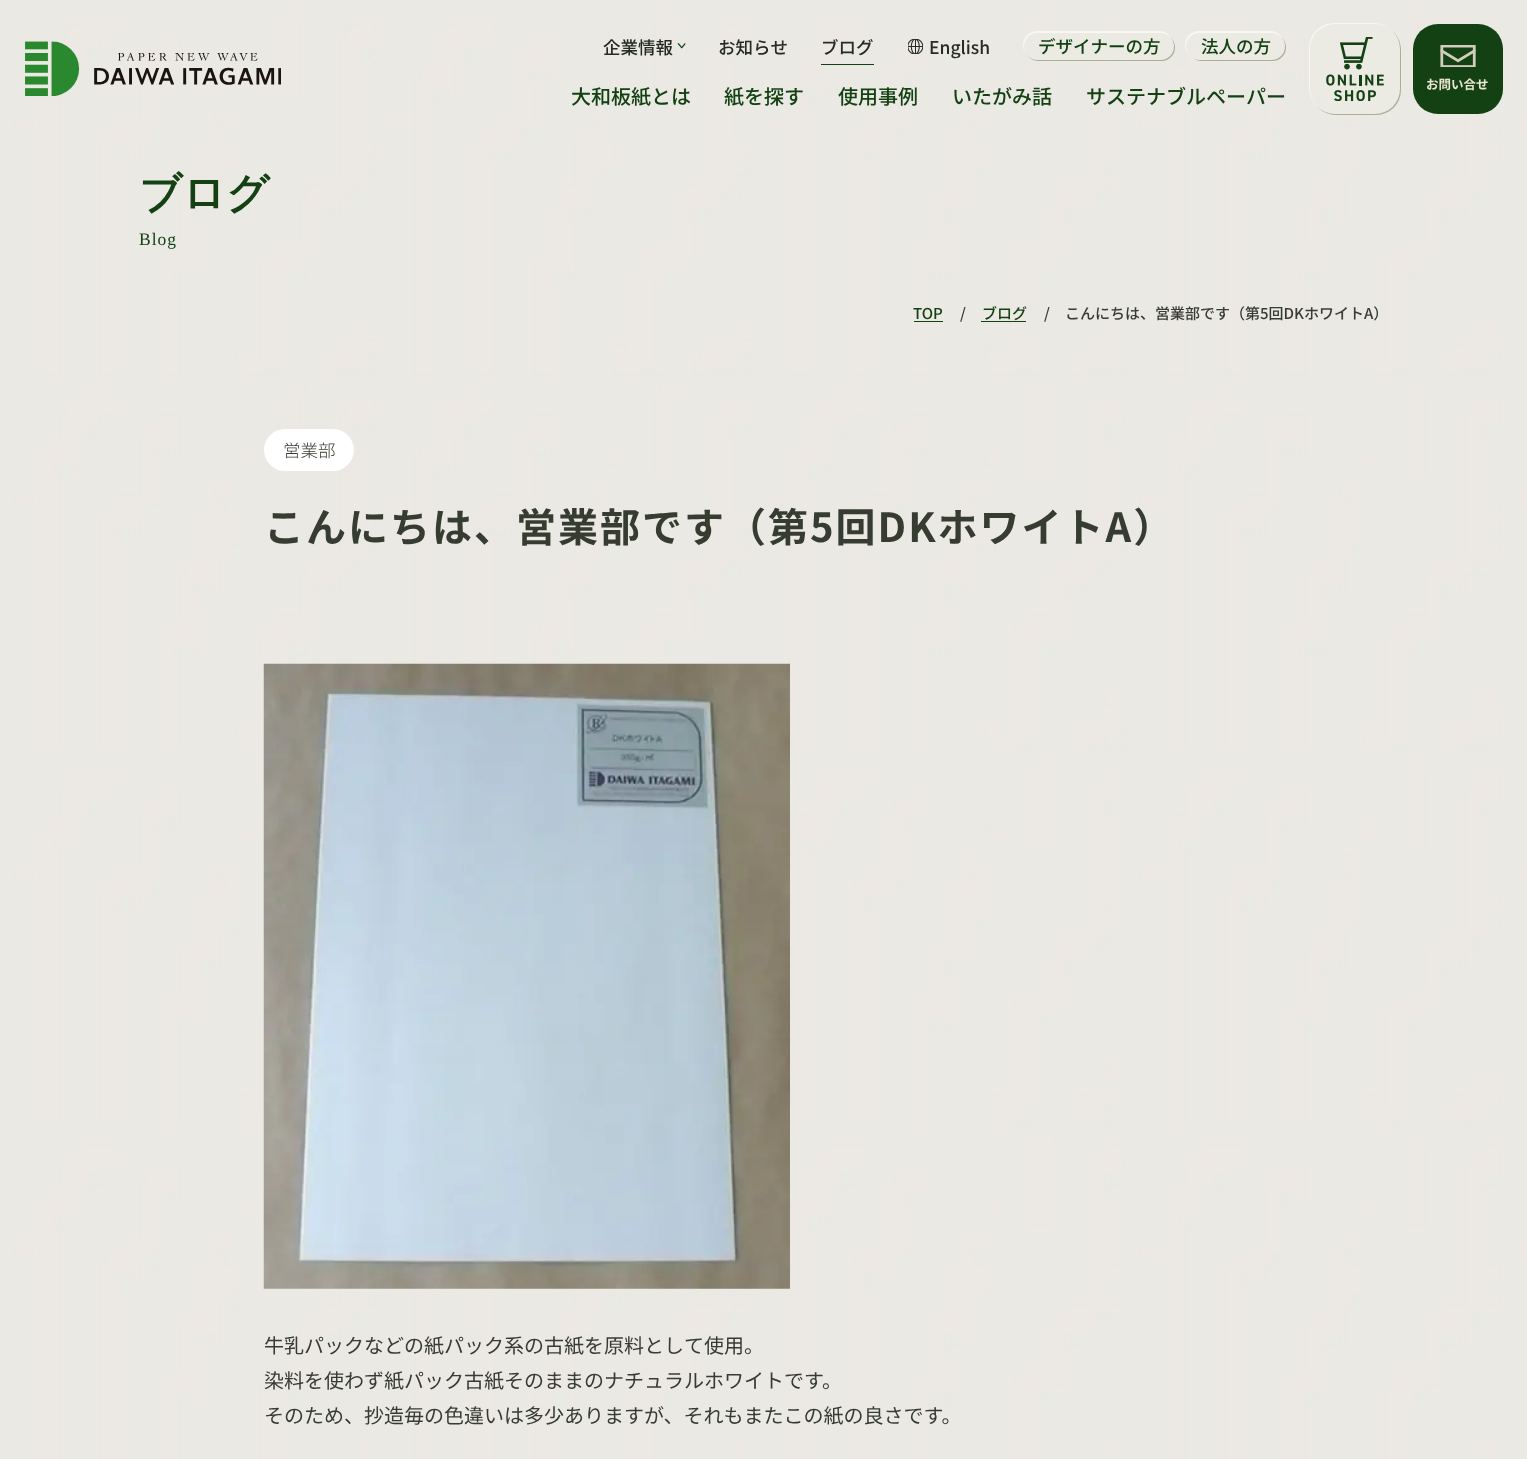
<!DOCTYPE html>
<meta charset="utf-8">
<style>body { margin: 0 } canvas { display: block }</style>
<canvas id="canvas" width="1527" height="1459"></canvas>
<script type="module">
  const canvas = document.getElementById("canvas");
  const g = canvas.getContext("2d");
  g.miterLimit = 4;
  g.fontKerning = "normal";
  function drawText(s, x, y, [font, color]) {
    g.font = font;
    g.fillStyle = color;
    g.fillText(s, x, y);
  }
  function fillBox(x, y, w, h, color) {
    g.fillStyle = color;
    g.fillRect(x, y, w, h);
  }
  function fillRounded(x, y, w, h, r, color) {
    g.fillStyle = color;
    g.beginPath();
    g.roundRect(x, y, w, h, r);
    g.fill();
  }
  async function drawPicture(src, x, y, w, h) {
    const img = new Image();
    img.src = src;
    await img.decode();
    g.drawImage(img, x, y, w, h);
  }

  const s1 = ["500 17.5px Noto Sans JP", "#262C21"];
  const s2 = ["500 17.5px Noto Sans JP", "#134113"];
  const s3 = ["500 20px Noto Sans JP", "#134113"];
  const s4 = ["bold 12.5px Noto Sans JP", "#ECE5D2"];
  const s5 = ["bold 42.5px WenQuanYi Zen Hei", "#134113"];
  const s6 = ["17.5px Liberation Serif", "#134113"];
  const s7 = ["500 15px Noto Sans JP", "#134113"];
  const s8 = ["500 15px Noto Sans JP", "#373C31"];
  const s9 = ["300 17.5px Noto Sans JP", "#373C31"];
  const s10 = ["bold 40px Noto Sans JP", "#373C31"];
  const s11 = ["20px Noto Sans JP", "#373C31"];

  fillBox(0, 0, 1527, 1459, "#FFFFFF");
  await drawPicture("pic1.png", 0, 0, 1527, 1459);
  await drawPicture("pic2.png", 25, 41, 256, 55);
  drawText("企業情報", 603, 54, s1);
  await drawPicture("pic3.png", 677, 43, 9, 6);
  drawText("お知らせ", 718, 54, s1);
  drawText("ブログ", 821, 54, s1);
  fillBox(821, 64, 53, 1, "#134113");
  await drawPicture("pic4.png", 908, 39, 15, 15);
  drawText("English", 929, 54, s1);
  g.fillStyle = "rgba(114, 113, 72, 0.5)";
  g.filter = "blur(0.5px)";
  g.beginPath();
  g.roundRect(1025, 34, 150, 27, 13.5);
  g.fill();
  g.filter = "none";
  g.fillStyle = "#F8F7F2";
  g.filter = "blur(0.5px)";
  g.beginPath();
  g.roundRect(1023, 31, 150, 28, 14);
  g.fill();
  g.filter = "none";
  fillRounded(1024, 33, 150, 27, 13.5, "#EBEAE3");
  drawText("デザイナーの方", 1038, 53, s2);
  g.fillStyle = "rgba(114, 113, 72, 0.5)";
  g.filter = "blur(0.5px)";
  g.beginPath();
  g.roundRect(1188, 34, 98, 27, 13.5);
  g.fill();
  g.filter = "none";
  g.fillStyle = "#F8F7F2";
  g.filter = "blur(0.5px)";
  g.beginPath();
  g.roundRect(1185, 31, 99, 28, 14);
  g.fill();
  g.filter = "none";
  fillRounded(1186, 33, 99, 27, 13.5, "#EBEAE3");
  drawText("法人の方", 1201, 53, s2);
  drawText("大和板紙とは", 571, 104, s3);
  drawText("紙を探す", 724, 104, s3);
  drawText("使用事例", 838, 104, s3);
  drawText("いたがみ話", 952, 104, s3);
  drawText("サステナブルペーパー", 1086, 104, s3);
  g.fillStyle = "rgba(114, 113, 72, 0.5)";
  g.filter = "blur(0.5px)";
  g.beginPath();
  g.roundRect(1311, 25, 90, 90, 25);
  g.fill();
  g.filter = "none";
  g.fillStyle = "#F8F7F2";
  g.filter = "blur(0.5px)";
  g.beginPath();
  g.roundRect(1309, 23, 90, 90, 25);
  g.fill();
  g.filter = "none";
  fillRounded(1310, 24, 90, 90, 25, "#EBEAE3");
  await drawPicture("pic5.png", 1326, 37, 58, 64);
  fillRounded(1413, 24, 90, 90, 25, "#134113");
  await drawPicture("pic6.png", 1440, 45, 36, 22);
  drawText("お問い合せ", 1426, 89, s4);
  drawText("ブログ", 139, 208, s5);
  g.letterSpacing = "1px";
  drawText("Blog", 139, 245, s6);
  g.letterSpacing = "0px";
  drawText("TOP", 913, 319, s7);
  fillBox(914, 321, 29, 1, "#134113");
  drawText("/", 960, 319, s8);
  drawText("ブログ", 982, 319, s7);
  fillBox(981, 321, 45, 1, "#134113");
  drawText("/", 1044, 319, s8);
  drawText("こんにちは、営業部です（第5回DKホワイトA）", 1065, 319, s8);
  fillRounded(264, 429, 90, 42, 21, "#FFFFFF");
  drawText("営業部", 283, 457, s9);
  g.letterSpacing = "2px";
  drawText("こんにちは、営業部です（第5回DKホワイトA）", 264, 542, s10);
  await drawPicture("pic7.png", 263, 663, 527, 626);
  g.letterSpacing = "0px";
  drawText("牛乳パックなどの紙パック系の古紙を原料として使用。", 264, 1353, s11);
  drawText("染料を使わず紙パック古紙そのままのナチュラルホワイトです。", 264, 1388, s11);
  drawText("そのため、抄造毎の色違いは多少ありますが、それもまたこの紙の良さです。", 264, 1423, s11);
</script>
